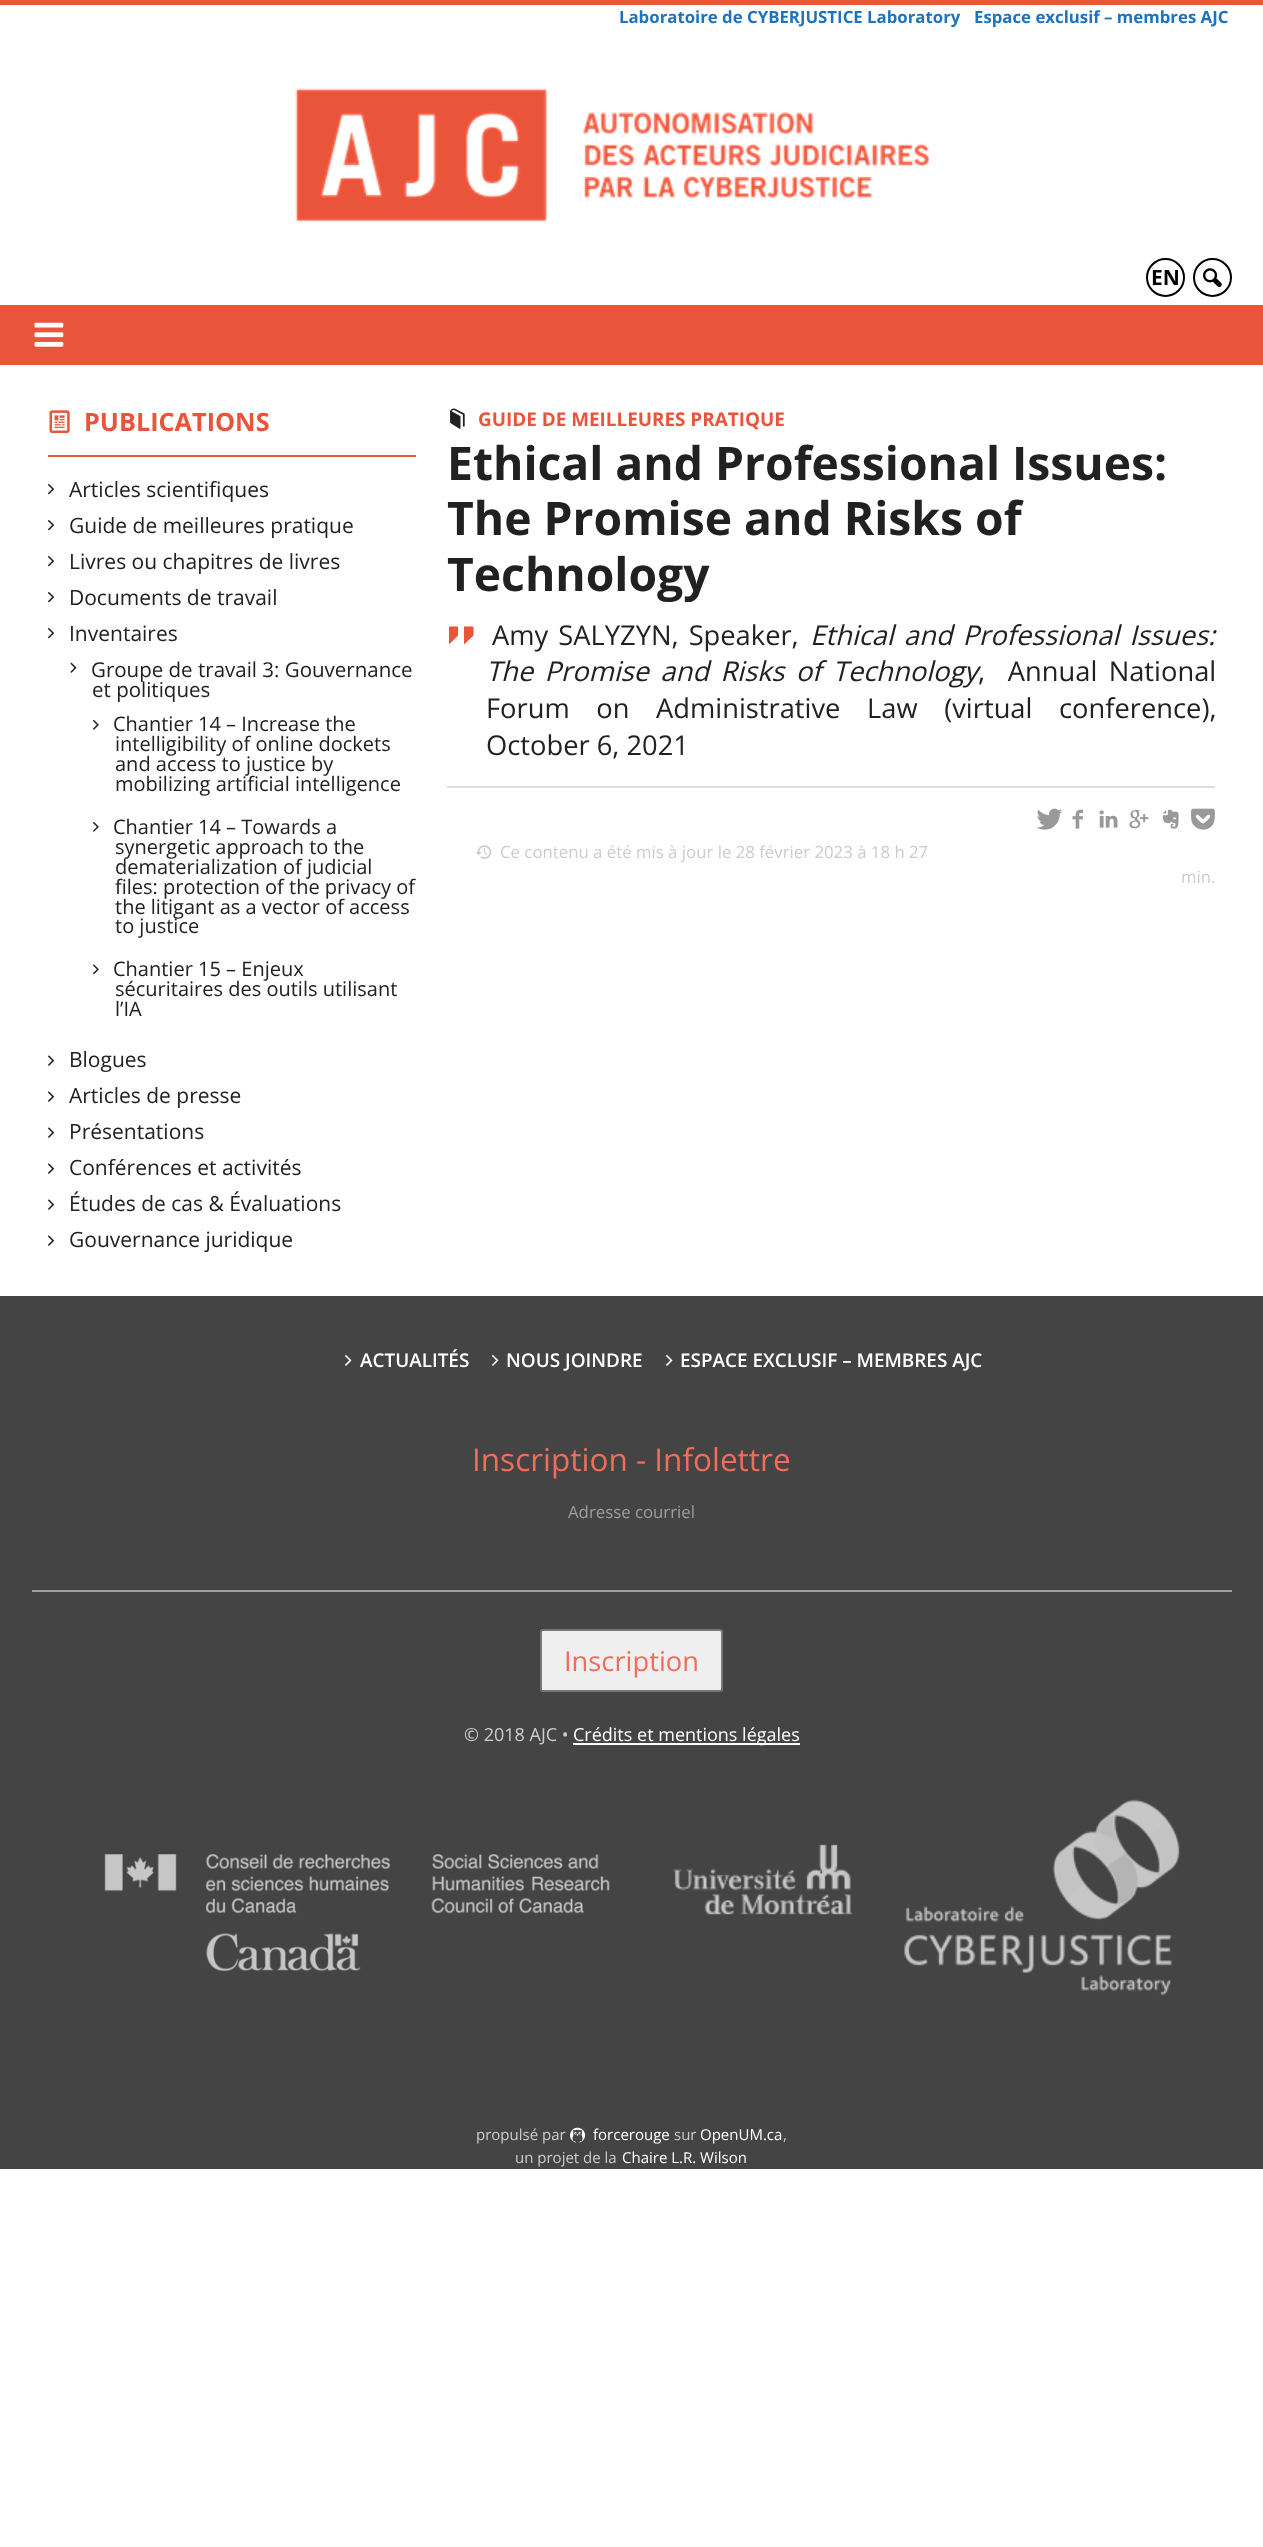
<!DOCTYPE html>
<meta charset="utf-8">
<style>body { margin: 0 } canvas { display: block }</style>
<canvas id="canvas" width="1263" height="2547"></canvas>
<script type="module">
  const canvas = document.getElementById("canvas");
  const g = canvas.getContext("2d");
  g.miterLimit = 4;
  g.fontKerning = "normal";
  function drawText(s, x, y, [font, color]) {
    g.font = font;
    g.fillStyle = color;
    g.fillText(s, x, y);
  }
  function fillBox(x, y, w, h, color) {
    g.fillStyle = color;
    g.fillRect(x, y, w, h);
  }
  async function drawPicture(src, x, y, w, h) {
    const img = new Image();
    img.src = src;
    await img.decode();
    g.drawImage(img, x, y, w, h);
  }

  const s1 = ["bold 16.8px Open Sans", "#1E73BE"];
  const s2 = ["bold 21px Open Sans", "#000000"];
  const s3 = ["bold 25.25px Open Sans", "#EA543A"];
  const s4 = ["21px Open Sans", "#212121"];
  const s5 = ["20.5px Open Sans", "#212121"];
  const s6 = ["20px Open Sans", "#212121"];
  const s7 = ["bold 18.9px Open Sans", "#EA543A"];
  const s8 = ["bold 46.25px Open Sans", "#212121"];
  const s9 = ["27.3px Open Sans", "#212121"];
  const s10 = ["italic 27.3px Open Sans", "#212121"];
  const s11 = ["16.8px Open Sans", "#CCCCCC"];
  const s12 = ["600 18.9px Open Sans", "#FFFFFF"];
  const s13 = ["31.5px Open Sans", "#F16C59"];
  const s14 = ["16.8px Open Sans", "#9E9E9E"];
  const s15 = ["27.3px Open Sans", "#F16C59"];
  const s16 = ["18px Open Sans", "#CCCCCC"];
  const s17 = ["18px Open Sans", "#FFFFFF"];
  const s18 = ["15px Open Sans", "#CCCCCC"];
  const s19 = ["15px Open Sans", "#FFFFFF"];

  fillBox(0, 0, 1263, 2547, "#FFFFFF");
  fillBox(0, 0, 1263, 5, "#EA543A");
  drawText("Laboratoire de CYBERJUSTICE Laboratory", 619, 23, s1);
  drawText("Espace exclusif – membres AJC", 974, 23, s1);
  await drawPicture("pic1.png", 295, 88, 635, 134);
  g.beginPath();
  g.arc(1165.5, 277.5, 18.5, 0, Math.PI * 2);
  g.strokeStyle = "#000000";
  g.lineWidth = 2;
  g.stroke();
  drawText("EN", 1151, 285, s2);
  g.beginPath();
  g.arc(1212.5, 277.5, 18.5, 0, Math.PI * 2);
  g.stroke();
  await drawPicture("pic2.png", 1203, 268, 19, 19);
  fillBox(0, 305, 1263, 60, "#EA543A");
  await drawPicture("pic3.png", 34, 322, 30, 25);
  fillBox(48, 455, 368, 2, "#EA543A");
  await drawPicture("pic4.png", 49, 410, 21, 23);
  drawText("PUBLICATIONS", 84, 431, s3);
  await drawPicture("pic5.png", 48, 484, 7, 11);
  drawText("Articles scientifiques", 69, 497, s4);
  await drawPicture("pic5.png", 48, 520, 7, 11);
  drawText("Guide de meilleures pratique", 69, 533, s4);
  await drawPicture("pic5.png", 48, 556, 7, 11);
  drawText("Livres ou chapitres de livres", 69, 569, s4);
  await drawPicture("pic5.png", 48, 592, 7, 11);
  drawText("Documents de travail", 69, 605, s4);
  await drawPicture("pic5.png", 48, 628, 7, 11);
  drawText("Inventaires", 69, 641, s4);
  await drawPicture("pic6.png", 70, 662, 7, 11);
  drawText("Groupe de travail 3: Gouvernance", 91, 677, s5);
  drawText("et politiques", 92, 697, s5);
  await drawPicture("pic7.png", 93, 720, 6, 10);
  drawText("Chantier 14 – Increase the", 113, 731, s6);
  drawText("intelligibility of online dockets", 115, 751, s6);
  drawText("and access to justice by", 115, 771, s6);
  drawText("mobilizing artificial intelligence", 115, 791, s6);
  await drawPicture("pic7.png", 93, 822, 6, 10);
  drawText("Chantier 14 – Towards a", 113, 834, s6);
  drawText("synergetic approach to the", 115, 854, s6);
  drawText("dematerialization of judicial", 115, 874, s6);
  drawText("files: protection of the privacy of", 115, 894, s6);
  drawText("the litigant as a vector of access", 115, 914, s6);
  drawText("to justice", 115, 933, s6);
  await drawPicture("pic8.png", 93, 964, 6, 11);
  drawText("Chantier 15 – Enjeux", 113, 976, s6);
  drawText("sécuritaires des outils utilisant", 115, 996, s6);
  drawText("l’IA", 115, 1016, s6);
  await drawPicture("pic9.png", 48, 1055, 7, 11);
  drawText("Blogues", 69, 1067, s4);
  await drawPicture("pic9.png", 48, 1091, 7, 11);
  drawText("Articles de presse", 69, 1103, s4);
  await drawPicture("pic9.png", 48, 1127, 7, 11);
  drawText("Présentations", 69, 1139, s4);
  await drawPicture("pic9.png", 48, 1163, 7, 11);
  drawText("Conférences et activités", 69, 1175, s4);
  await drawPicture("pic9.png", 48, 1199, 7, 11);
  drawText("Études de cas & Évaluations", 69, 1211, s4);
  await drawPicture("pic9.png", 48, 1235, 7, 11);
  drawText("Gouvernance juridique", 69, 1247, s4);
  await drawPicture("pic10.png", 450, 408, 15, 21);
  drawText("GUIDE DE MEILLEURES PRATIQUE", 478, 426, s7);
  drawText("Ethical and Professional Issues:", 447, 480, s8);
  drawText("The Promise and Risks of", 447, 535, s8);
  drawText("Technology", 447, 591, s8);
  g.fillStyle = "#EA543A";
  g.beginPath();
  g.moveTo(449, 626.5);
  g.lineTo(458, 626.5);
  g.lineTo(458, 635.5);
  g.lineTo(449, 644.5);
  g.closePath();
  g.moveTo(464, 626.5);
  g.lineTo(473.5, 626.5);
  g.lineTo(473.5, 635.5);
  g.lineTo(464, 644.5);
  g.closePath();
  g.fill();
  g.wordSpacing = "3px";
  drawText("Amy SALYZYN, Speaker,", 492, 645, s9);
  drawText("Ethical and Professional Issues:", 810, 645, s10);
  g.wordSpacing = "4.25px";
  drawText("The Promise and Risks of Technology", 486, 681, s10);
  drawText(",  Annual National", 978, 681, s9);
  g.wordSpacing = "19.5px";
  drawText("Forum on Administrative Law (virtual conference),", 486, 718, s9);
  g.wordSpacing = "0px";
  drawText("October 6, 2021", 486, 755, s9);
  fillBox(447, 786, 768, 2, "#DDDDDD");
  await drawPicture("pic11.png", 1036, 808, 27, 22);
  await drawPicture("pic12.png", 1072, 809, 11, 20);
  await drawPicture("pic13.png", 1099, 810, 19, 18);
  await drawPicture("pic14.png", 1129, 809, 20, 20);
  await drawPicture("pic15.png", 1162, 809, 17, 20);
  await drawPicture("pic16.png", 1191, 808, 24, 22);
  await drawPicture("pic17.png", 475, 845, 17, 14);
  drawText("Ce contenu a été mis à jour le 28 février 2023 à 18 h 27", 500, 858, s11);
  drawText("min.", 1181, 883, s11);
  fillBox(0, 1296, 1263, 873, "#444444");
  await drawPicture("pic18.png", 345, 1355, 7, 11);
  drawText("ACTUALITÉS", 360, 1367, s12);
  await drawPicture("pic18.png", 492, 1355, 7, 11);
  drawText("NOUS JOINDRE", 506, 1367, s12);
  await drawPicture("pic18.png", 666, 1355, 7, 11);
  drawText("ESPACE EXCLUSIF – MEMBRES AJC", 680, 1367, s12);
  drawText("Inscription - Infolettre", 472, 1471, s13);
  drawText("Adresse courriel", 568, 1518, s14);
  fillBox(32, 1590, 1200, 2, "#9E9E9E");
  g.fillStyle = "#EFEFEF";
  g.beginPath();
  g.roundRect(541, 1630, 181, 61, 2);
  g.fill();
  g.strokeStyle = "#767676";
  g.stroke();
  drawText("Inscription", 564, 1671, s15);
  drawText("© 2018 AJC •", 464, 1741, s16);
  fillBox(573, 1743, 227, 2, "#FFFFFF");
  drawText("Crédits et mentions légales", 573, 1741, s17);
  await drawPicture("pic19.png", 104, 1854, 506, 118);
  await drawPicture("pic20.png", 673, 1844, 180, 71);
  await drawPicture("pic21.png", 904, 1799, 276, 197);
  drawText("propulsé par", 476, 2140, s18);
  await drawPicture("pic22.png", 570, 2127, 16, 16);
  drawText("forcerouge", 593, 2140, s19);
  drawText("sur", 674, 2140, s18);
  drawText("OpenUM.ca", 700, 2140, s19);
  drawText(",", 783, 2140, s18);
  drawText("un projet de la", 515, 2163, s18);
  drawText("Chaire L.R. Wilson", 622, 2163, s19);
</script>
